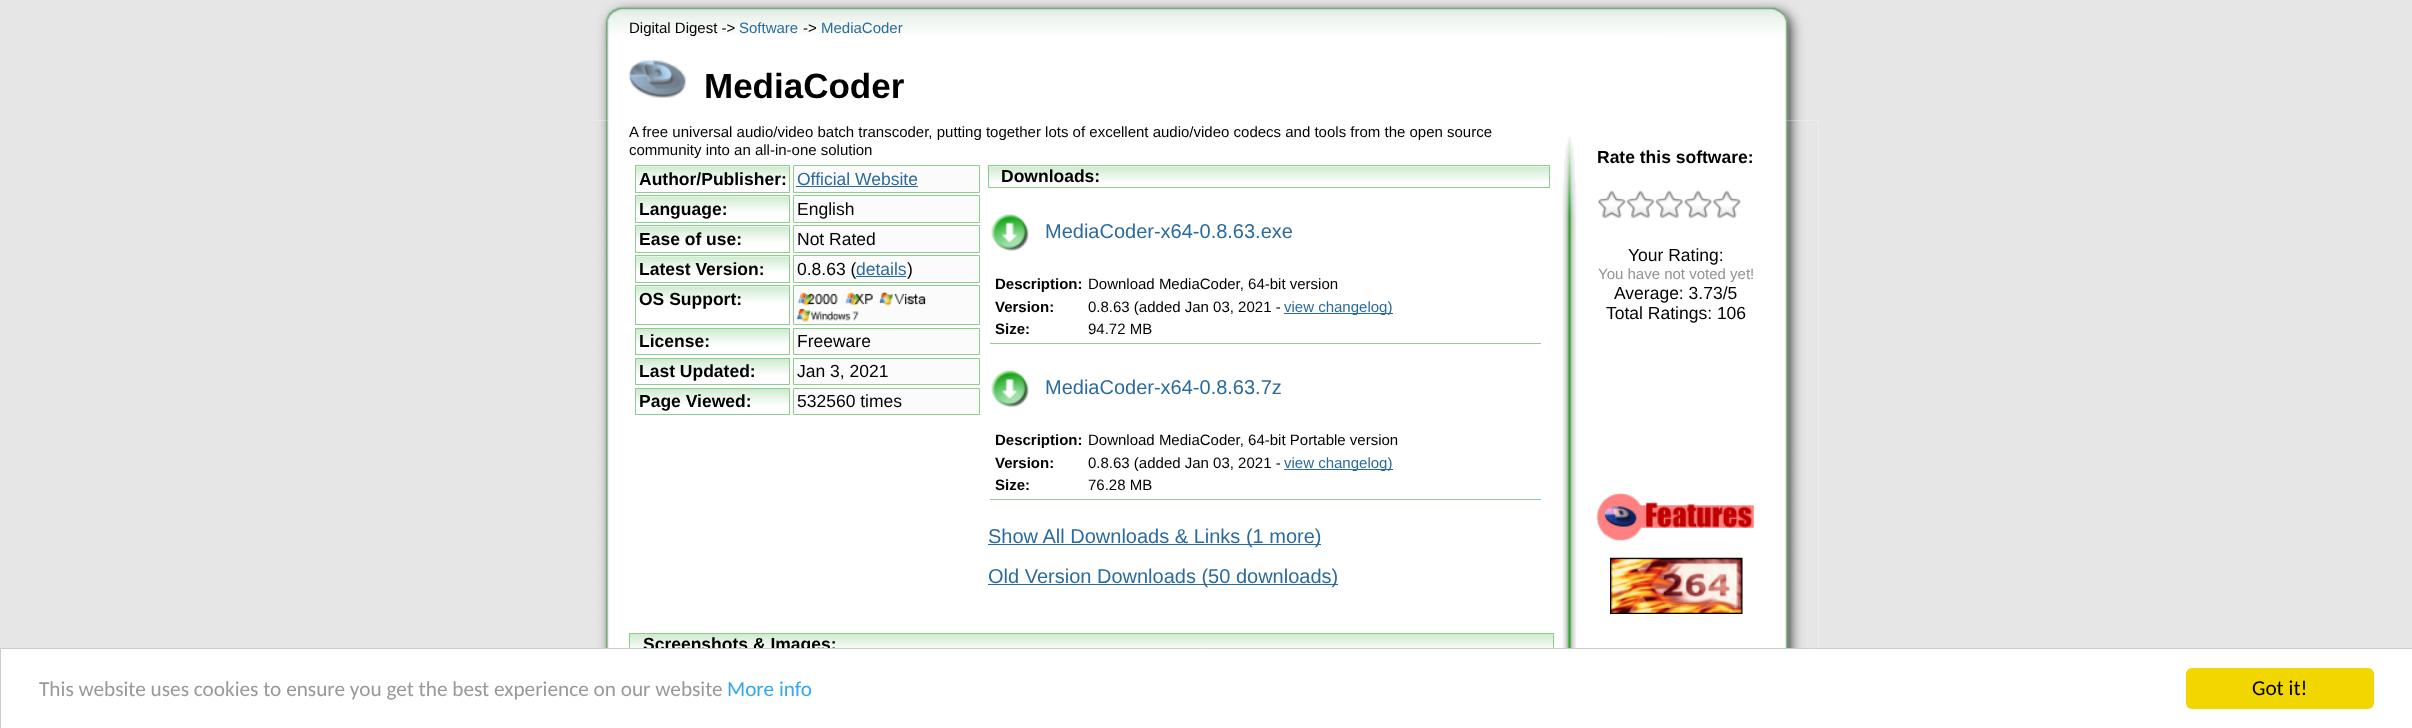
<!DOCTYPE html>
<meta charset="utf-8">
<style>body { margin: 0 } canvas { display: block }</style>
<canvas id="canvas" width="2412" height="728"></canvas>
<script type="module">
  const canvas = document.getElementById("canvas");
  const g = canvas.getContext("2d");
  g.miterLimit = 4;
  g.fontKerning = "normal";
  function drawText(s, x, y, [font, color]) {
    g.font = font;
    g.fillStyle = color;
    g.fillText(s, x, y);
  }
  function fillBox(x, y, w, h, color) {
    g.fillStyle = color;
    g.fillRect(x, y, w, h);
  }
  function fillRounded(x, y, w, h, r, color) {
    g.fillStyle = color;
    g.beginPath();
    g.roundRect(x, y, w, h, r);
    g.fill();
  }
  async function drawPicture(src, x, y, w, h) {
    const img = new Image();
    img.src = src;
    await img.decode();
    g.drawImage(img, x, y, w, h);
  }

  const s1 = ["15px Liberation Sans", "#000000"];
  const s2 = ["15px Liberation Sans", "#2A6B9F"];
  const s3 = ["bold 35px Liberation Sans", "#000000"];
  const s4 = ["bold 17.5px Liberation Sans", "#000000"];
  const s5 = ["17.5px Liberation Sans", "#2A6B9F"];
  const s6 = ["17.5px Liberation Sans", "#000000"];
  const s7 = ["20px Liberation Sans", "#2A6B9F"];
  const s8 = ["bold 15px Liberation Sans", "#000000"];
  const s9 = ["15px Liberation Sans", "#929292"];
  const s10 = ["21.25px Carlito", "#999999"];
  const s11 = ["21.25px Carlito", "#31A8F0"];
  const s12 = ["21.25px Carlito", "#000000"];

  fillBox(0, 0, 2412, 728, "#E6E6E6");
  await drawPicture("pic1.png", 594, 0, 1225, 120);
  drawText("Digital Digest ->", 629, 33, s1);
  drawText("Software", 739, 33, s2);
  drawText("->", 803, 33, s1);
  drawText("MediaCoder", 821, 33, s2);
  await drawPicture("pic2.png", 628, 60, 59, 38);
  drawText("MediaCoder", 704, 98, s3);
  fillBox(594, 120, 1225, 528, "#FFFFFF");
  await drawPicture("pic3.png", 594, 120, 1225, 528);
  drawText("A free universal audio/video batch transcoder, putting together lots of excellent audio/video codecs and tools from the open source", 629, 137, s1);
  drawText("community into an all-in-one solution", 629, 155, s1);
  await drawPicture("pic4.png", 636, 166, 153, 16);
  g.strokeStyle = "#8FCD8F";
  g.strokeRect(635.5, 165.5, 154, 27);
  drawText("Author/Publisher:", 639, 185, s4);
  g.fillStyle = "#FBFBFB";
  g.beginPath();
  g.rect(793.5, 165.5, 186, 27);
  g.fill();
  g.stroke();
  drawText("Official Website", 797, 185, s5);
  fillBox(796, 186, 122, 1, "#2A6B9F");
  await drawPicture("pic5.png", 636, 196, 153, 16);
  g.strokeRect(635.5, 195.5, 154, 27);
  drawText("Language:", 639, 215, s4);
  g.fillStyle = "#FBFBFB";
  g.beginPath();
  g.rect(793.5, 195.5, 186, 27);
  g.fill();
  g.stroke();
  drawText("English", 797, 215, s6);
  await drawPicture("pic6.png", 636, 226, 153, 16);
  g.strokeRect(635.5, 225.5, 154, 27);
  drawText("Ease of use:", 639, 245, s4);
  g.fillStyle = "#FBFBFB";
  g.beginPath();
  g.rect(793.5, 225.5, 186, 27);
  g.fill();
  g.stroke();
  drawText("Not Rated", 797, 245, s6);
  await drawPicture("pic6.png", 636, 256, 153, 16);
  g.strokeRect(635.5, 255.5, 154, 27);
  drawText("Latest Version:", 639, 275, s4);
  g.fillStyle = "#FBFBFB";
  g.beginPath();
  g.rect(793.5, 255.5, 186, 27);
  g.fill();
  g.stroke();
  drawText("0.8.63 (", 797, 275, s6);
  drawText("details", 856, 275, s5);
  fillBox(856, 276, 50, 1, "#2A6B9F");
  drawText(")", 907, 275, s6);
  await drawPicture("pic6.png", 636, 286, 153, 16);
  g.strokeRect(635.5, 285.5, 154, 39);
  drawText("OS Support:", 639, 305, s4);
  g.fillStyle = "#FBFBFB";
  g.beginPath();
  g.rect(793.5, 285.5, 186, 39);
  g.fill();
  g.stroke();
  await drawPicture("pic7.png", 797, 292, 41, 14);
  await drawPicture("pic8.png", 845, 292, 28, 14);
  await drawPicture("pic9.png", 878, 292, 48, 14);
  await drawPicture("pic10.png", 796, 309, 63, 13);
  await drawPicture("pic11.png", 636, 329, 153, 15);
  g.strokeRect(635.5, 328.5, 154, 26);
  drawText("License:", 639, 347, s4);
  g.fillStyle = "#FBFBFB";
  g.beginPath();
  g.rect(793.5, 328.5, 186, 26);
  g.fill();
  g.stroke();
  drawText("Freeware", 797, 347, s6);
  await drawPicture("pic12.png", 636, 359, 153, 15);
  g.strokeRect(635.5, 358.5, 154, 26);
  drawText("Last Updated:", 639, 377, s4);
  g.fillStyle = "#FBFBFB";
  g.beginPath();
  g.rect(793.5, 358.5, 186, 26);
  g.fill();
  g.stroke();
  drawText("Jan 3, 2021", 797, 377, s6);
  await drawPicture("pic12.png", 636, 389, 153, 15);
  g.strokeRect(635.5, 388.5, 154, 26);
  drawText("Page Viewed:", 639, 407, s4);
  g.fillStyle = "#FBFBFB";
  g.beginPath();
  g.rect(793.5, 388.5, 186, 26);
  g.fill();
  g.stroke();
  drawText("532560 times", 797, 407, s6);
  await drawPicture("pic13.png", 987, 166, 562, 16);
  g.strokeRect(988.5, 165.5, 561, 22);
  drawText("Downloads:", 1001, 182, s4);
  fillBox(990, 343, 551, 1, "#8FCD8F");
  await drawPicture("pic14.png", 991, 214, 38, 38);
  drawText("MediaCoder-x64-0.8.63.exe", 1045, 238, s7);
  drawText("Description:", 995, 289, s8);
  drawText("Download MediaCoder, 64-bit version", 1088, 289, s1);
  drawText("Version:", 995, 312, s8);
  drawText("0.8.63 (added Jan 03, 2021 -", 1088, 312, s1);
  fillBox(1284, 313, 109, 1, "#2A6B9F");
  drawText("view changelog)", 1284, 312, s2);
  drawText("Size:", 995, 334, s8);
  drawText("94.72 MB", 1088, 334, s1);
  fillBox(990, 499, 551, 1, "#8FCD8F");
  await drawPicture("pic15.png", 991, 370, 38, 38);
  drawText("MediaCoder-x64-0.8.63.7z", 1045, 394, s7);
  drawText("Description:", 995, 445, s8);
  drawText("Download MediaCoder, 64-bit Portable version", 1088, 445, s1);
  drawText("Version:", 995, 468, s8);
  drawText("0.8.63 (added Jan 03, 2021 -", 1088, 468, s1);
  fillBox(1284, 469, 109, 1, "#2A6B9F");
  drawText("view changelog)", 1284, 468, s2);
  drawText("Size:", 995, 490, s8);
  drawText("76.28 MB", 1088, 490, s1);
  fillBox(988, 544, 333, 1, "#2A6B9F");
  drawText("Show All Downloads & Links (1 more)", 988, 543, s7);
  fillBox(988, 584, 350, 1, "#2A6B9F");
  drawText("Old Version Downloads (50 downloads)", 988, 583, s7);
  await drawPicture("pic16.png", 628, 634, 925, 14);
  g.strokeRect(629.5, 633.5, 924, 21);
  drawText("Screenshots & Images:", 643, 650, s4);
  await drawPicture("pic17.png", 1562, 135, 15, 513);
  drawText("Rate this software:", 1597, 163, s4);
  await drawPicture("pic18.png", 1597, 190, 29, 28);
  await drawPicture("pic19.png", 1626, 190, 29, 28);
  await drawPicture("pic20.png", 1655, 190, 28, 28);
  await drawPicture("pic21.png", 1683, 190, 29, 28);
  await drawPicture("pic18.png", 1712, 190, 29, 28);
  drawText("Your Rating:", 1628, 261, s6);
  drawText("You have not voted yet!", 1598, 279, s9);
  drawText("Average: 3.73/5", 1614, 299, s6);
  drawText("Total Ratings: 106", 1606, 319, s6);
  await drawPicture("pic22.png", 1596, 492, 158, 49);
  await drawPicture("pic23.png", 1610, 557, 133, 57);
  g.fillStyle = "#FFFFFF";
  g.beginPath();
  g.rect(0.5, 648.5, 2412, 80);
  g.fill();
  g.strokeStyle = "#CCCCCC";
  g.stroke();
  drawText("This website uses cookies to ensure you get the best experience on our website", 39, 696, s10);
  drawText("More info", 727, 696, s11);
  fillRounded(2186, 668, 188, 41, 6, "#F1D600");
  drawText("Got it!", 2252, 695, s12);
</script>
